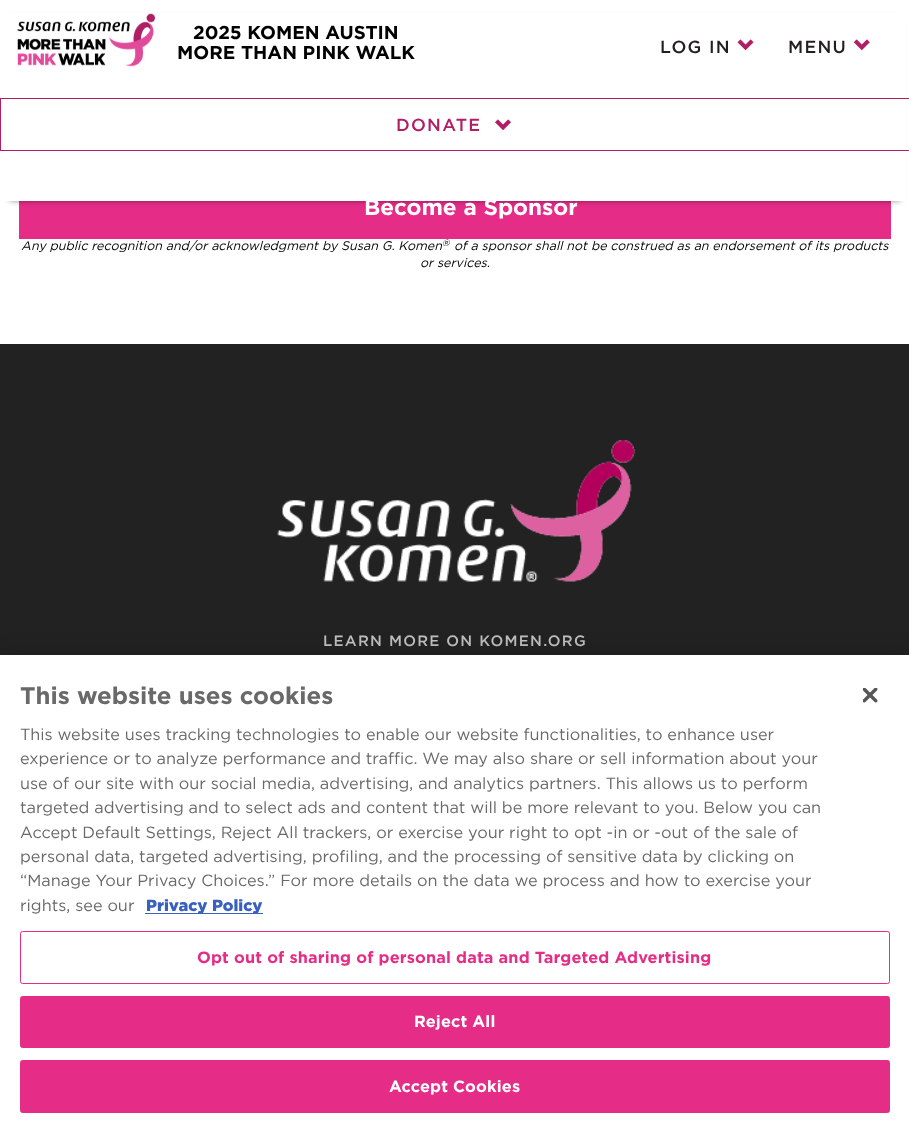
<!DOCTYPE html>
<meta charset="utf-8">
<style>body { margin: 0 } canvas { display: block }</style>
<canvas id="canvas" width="909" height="1124"></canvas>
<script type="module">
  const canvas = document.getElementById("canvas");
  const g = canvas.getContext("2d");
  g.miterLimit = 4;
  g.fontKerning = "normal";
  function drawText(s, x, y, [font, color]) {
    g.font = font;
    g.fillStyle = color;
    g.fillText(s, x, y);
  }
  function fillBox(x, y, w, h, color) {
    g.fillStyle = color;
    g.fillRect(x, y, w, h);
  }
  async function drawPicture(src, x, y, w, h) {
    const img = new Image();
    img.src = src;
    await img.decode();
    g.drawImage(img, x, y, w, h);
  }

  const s1 = ["bold 18.75px Gotham", "#000000"];
  const s2 = ["500 17.5px Gotham", "#231F20"];
  const s3 = ["500 17.5px Gotham", "#B01E65"];
  const s4 = ["bold 22.5px Gotham", "#FFFFFF"];
  const s5 = ["italic 12.5px Gotham", "#000000"];
  const s6 = ["italic 9px Gotham", "#000000"];
  const s7 = ["500 15px Gotham", "#BFBFBF"];
  const s8 = ["bold 24px Gotham", "#696969"];
  const s9 = ["16.25px Gotham", "#696969"];
  const s10 = ["900 16.25px Gotham", "#3860BE"];
  const s11 = ["bold 16.25px Gotham", "#E52D87"];
  const s12 = ["bold 16.25px Gotham", "#FFFFFF"];

  fillBox(0, 0, 909, 1124, "#FFFFFF");
  fillBox(19, 201, 872, 38, "#E52D87");
  g.fillStyle = "rgba(0, 0, 0, 0.6)";
  g.filter = "blur(3px)";
  g.beginPath();
  g.rect(10, 19, 890, 181);
  g.fill();
  g.filter = "none";
  fillBox(4, 13, 902, 188, "#FFFFFF");
  await drawPicture("pic1.png", 17, 13, 138, 54);
  drawText("2025 KOMEN AUSTIN", 193, 39, s1);
  drawText("MORE THAN PINK WALK", 177, 59, s1);
  g.letterSpacing = "1.25px";
  drawText("LOG IN", 660, 53, s2);
  await drawPicture("pic2.png", 737, 39, 17, 12);
  drawText("MENU", 788, 53, s2);
  await drawPicture("pic3.png", 853, 39, 17, 12);
  g.strokeStyle = "#B01E65";
  g.strokeRect(0.5, 98.5, 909, 52);
  drawText("DONATE", 396, 131, s3);
  await drawPicture("pic4.png", 495, 119, 16, 12);
  g.letterSpacing = "0px";
  drawText("Become a Sponsor", 364, 215, s4);
  drawText("Any public recognition and/or acknowledgment by Susan G. Komen", 21, 250, s5);
  drawText("®", 442, 246, s6);
  drawText("of a sponsor shall not be construed as an endorsement of its products", 454, 250, s5);
  drawText("or services.", 420, 267, s5);
  fillBox(0, 344, 909, 311, "#222222");
  await drawPicture("pic5.png", 277, 440, 359, 142);
  g.letterSpacing = "1.25px";
  drawText("LEARN MORE ON KOMEN.ORG", 323, 646, s7);
  g.fillStyle = "rgba(0, 0, 0, 0.2)";
  g.filter = "blur(11px)";
  g.beginPath();
  g.rect(0, 655, 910, 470);
  g.fill();
  g.filter = "none";
  fillBox(0, 655, 909, 469, "#FFFFFF");
  g.letterSpacing = "0px";
  drawText("This website uses cookies", 20, 704, s8);
  drawText("This website uses tracking technologies to enable our website functionalities, to enhance user", 20, 740, s9);
  drawText("experience or to analyze performance and traffic. We may also share or sell information about your", 20, 764, s9);
  drawText("use of our site with our social media, advertising, and analytics partners. This allows us to perform", 20, 789, s9);
  drawText("targeted advertising and to select ads and content that will be more relevant to you. Below you can", 20, 813, s9);
  drawText("Accept Default Settings, Reject All trackers, or exercise your right to opt -in or -out of the sale of", 20, 838, s9);
  drawText("personal data, targeted advertising, profiling, and the processing of sensitive data by clicking on", 20, 862, s9);
  drawText("“Manage Your Privacy Choices.” For more details on the data we process and how to exercise your", 20, 886, s9);
  drawText("rights, see our", 20, 911, s9);
  fillBox(145, 913, 118, 1, "#3860BE");
  drawText("Privacy Policy", 146, 911, s10);
  g.beginPath();
  g.roundRect(20.5, 931.5, 869, 52, 2);
  g.strokeStyle = "#E52D87";
  g.stroke();
  g.letterSpacing = "0.15px";
  drawText("Opt out of sharing of personal data and Targeted Advertising", 197, 963, s11);
  g.beginPath();
  g.roundRect(20.5, 996.5, 869, 51, 2);
  g.fill();
  g.stroke();
  drawText("Reject All", 414, 1027, s12);
  g.fillStyle = "#E52D87";
  g.beginPath();
  g.roundRect(20.5, 1060.5, 869, 52, 2);
  g.fill();
  g.stroke();
  drawText("Accept Cookies", 389, 1092, s12);
  await drawPicture("pic6.png", 863, 688, 15, 15);
</script>
